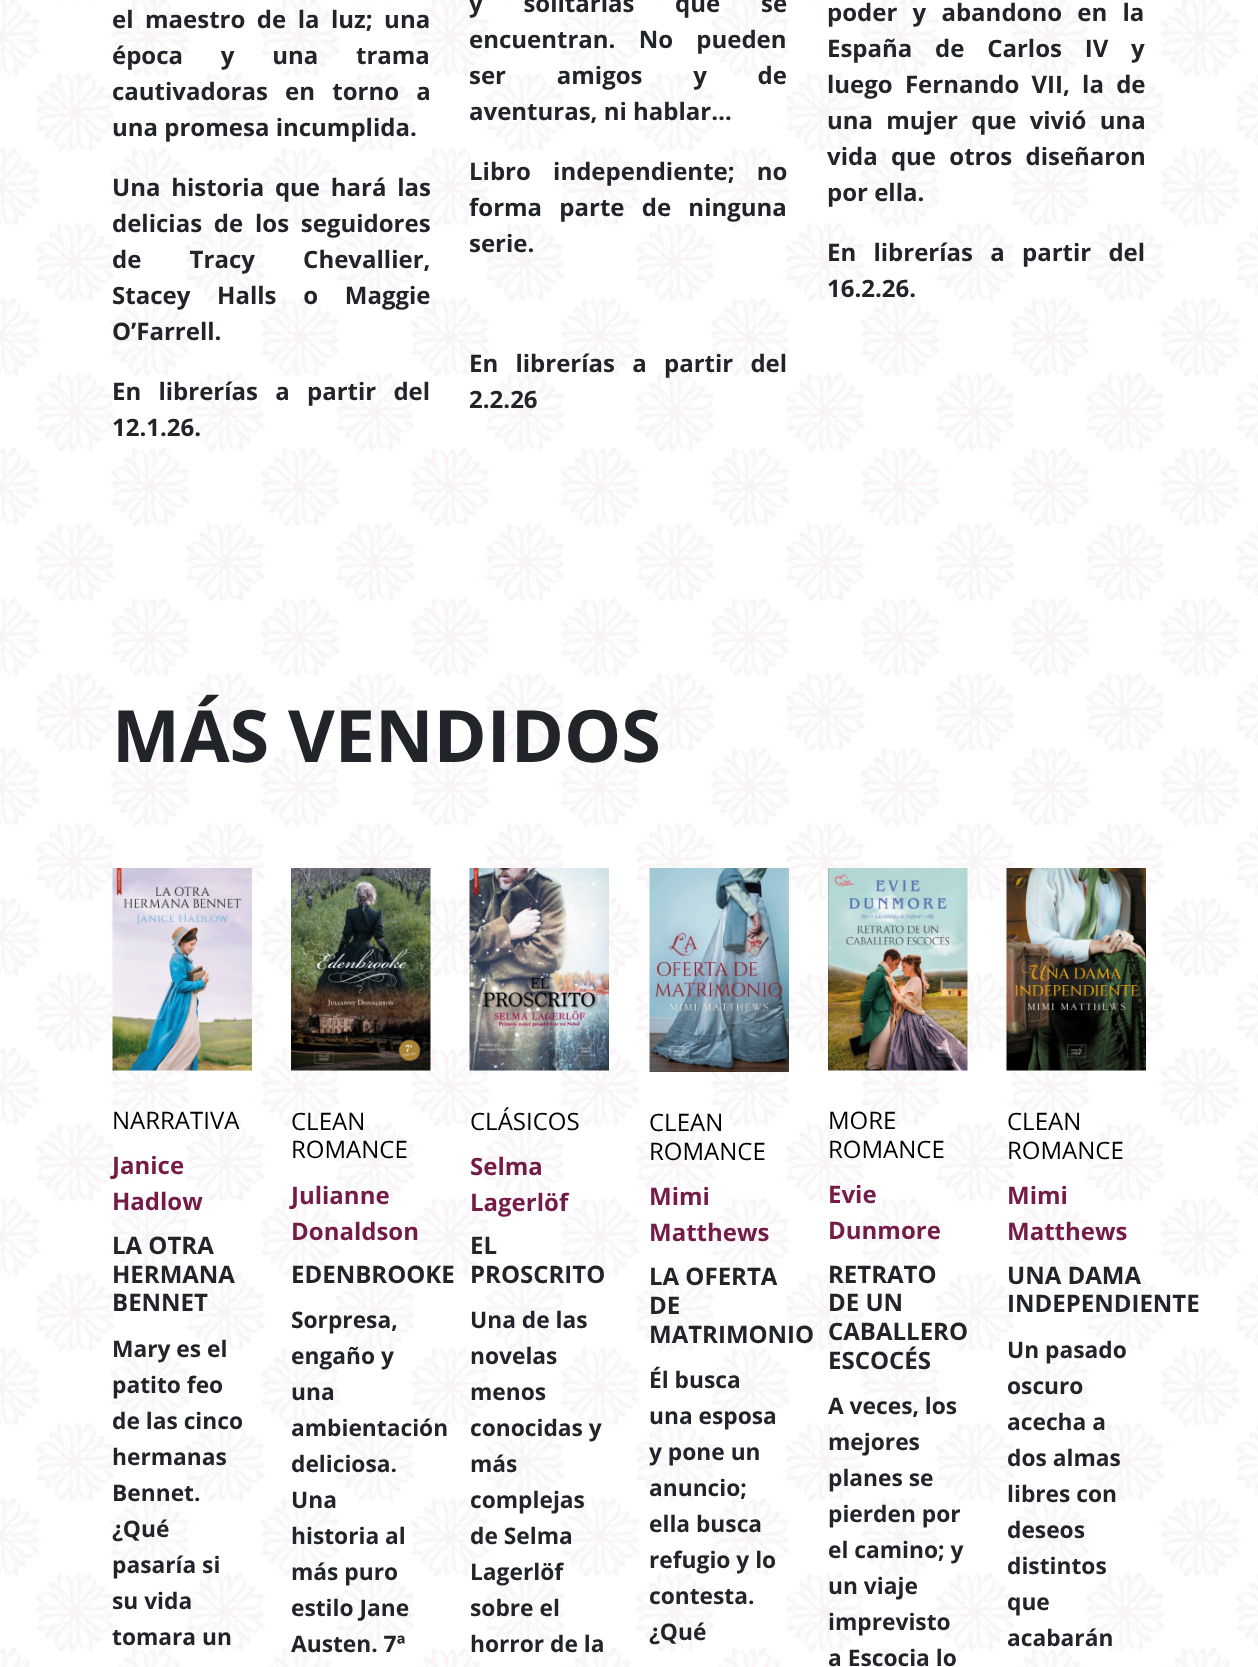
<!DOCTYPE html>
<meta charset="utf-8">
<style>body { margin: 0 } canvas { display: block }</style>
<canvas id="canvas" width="1258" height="1667"></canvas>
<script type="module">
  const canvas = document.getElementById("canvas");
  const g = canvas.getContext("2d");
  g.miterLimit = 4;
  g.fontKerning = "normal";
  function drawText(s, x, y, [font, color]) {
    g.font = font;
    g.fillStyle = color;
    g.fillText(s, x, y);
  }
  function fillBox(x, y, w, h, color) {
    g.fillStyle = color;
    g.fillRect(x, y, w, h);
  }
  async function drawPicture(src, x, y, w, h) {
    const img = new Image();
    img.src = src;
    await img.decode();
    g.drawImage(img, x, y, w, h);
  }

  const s1 = ["bold 24px Open Sans", "#212529"];
  const s2 = ["bold 72px Open Sans", "#212529"];
  const s3 = ["24px Open Sans", "#000000"];
  const s4 = ["bold 24px Open Sans", "#741B47"];
  const s5 = ["bold 22.75px Open Sans", "#212529"];

  fillBox(0, 0, 1258, 1667, "#FFFFFF");
  await drawPicture("pic1.png", 0, 0, 1258, 1667);
  g.wordSpacing = "5.25px";
  drawText("el maestro de la luz; una", 112, 28, s1);
  g.wordSpacing = "31.5px";
  drawText("época y una trama", 112, 64, s1);
  g.wordSpacing = "11px";
  drawText("cautivadoras en torno a", 112, 100, s1);
  g.wordSpacing = "0px";
  drawText("una promesa incumplida.", 112, 136, s1);
  g.wordSpacing = "4.5px";
  drawText("Una historia que hará las", 112, 196, s1);
  g.wordSpacing = "5.5px";
  drawText("delicias de los seguidores", 112, 232, s1);
  g.wordSpacing = "42px";
  drawText("de Tracy Chevallier,", 112, 268, s1);
  g.wordSpacing = "20.5px";
  drawText("Stacey Halls o Maggie", 112, 304, s1);
  g.wordSpacing = "0px";
  drawText("O’Farrell.", 112, 340, s1);
  g.wordSpacing = "11px";
  drawText("En librerías a partir del", 112, 400, s1);
  g.wordSpacing = "0px";
  drawText("12.1.26.", 112, 436, s1);
  g.wordSpacing = "34.5px";
  drawText("y solitarias que se", 469, 12, s1);
  g.wordSpacing = "17px";
  drawText("encuentran. No pueden", 469, 48, s1);
  g.wordSpacing = "44.5px";
  drawText("ser amigos y de", 469, 84, s1);
  g.wordSpacing = "0px";
  drawText("aventuras, ni hablar…", 469, 120, s1);
  g.wordSpacing = "16px";
  drawText("Libro independiente; no", 469, 180, s1);
  g.wordSpacing = "11px";
  drawText("forma parte de ninguna", 469, 216, s1);
  g.wordSpacing = "0px";
  drawText("serie.", 469, 252, s1);
  g.wordSpacing = "11px";
  drawText("En librerías a partir del", 469, 372, s1);
  g.wordSpacing = "0px";
  drawText("2.2.26", 469, 408, s1);
  g.wordSpacing = "9px";
  drawText("poder y abandono en la", 827, 21, s1);
  g.wordSpacing = "16.5px";
  drawText("España de Carlos IV y", 827, 57, s1);
  g.wordSpacing = "6px";
  drawText("luego Fernando VII, la de", 827, 93, s1);
  g.wordSpacing = "7px";
  drawText("una mujer que vivió una", 827, 129, s1);
  drawText("vida que otros diseñaron", 827, 165, s1);
  g.wordSpacing = "0px";
  drawText("por ella.", 827, 201, s1);
  g.wordSpacing = "11px";
  drawText("En librerías a partir del", 827, 261, s1);
  g.wordSpacing = "0px";
  drawText("16.2.26.", 827, 297, s1);
  drawText("MÁS VENDIDOS", 112, 762, s2);
  await drawPicture("pic2.png", 112, 868, 140, 203);
  drawText("NARRATIVA", 112, 1129, s3);
  drawText("Janice", 112, 1174, s4);
  drawText("Hadlow", 112, 1210, s4);
  drawText("LA OTRA", 112, 1254, s1);
  drawText("HERMANA", 112, 1283, s1);
  drawText("BENNET", 112, 1311, s1);
  drawText("Mary es el", 112, 1357, s5);
  drawText("patito feo", 112, 1393, s5);
  drawText("de las cinco", 112, 1429, s5);
  drawText("hermanas", 112, 1465, s5);
  drawText("Bennet.", 112, 1501, s5);
  drawText("¿Qué", 112, 1537, s5);
  drawText("pasaría si", 112, 1573, s5);
  drawText("su vida", 112, 1609, s5);
  drawText("tomara un", 112, 1645, s5);
  await drawPicture("pic3.png", 291, 868, 140, 203);
  drawText("CLEAN", 291, 1130, s3);
  drawText("ROMANCE", 291, 1158, s3);
  drawText("Julianne", 291, 1204, s4);
  drawText("Donaldson", 291, 1240, s4);
  drawText("EDENBROOKE", 291, 1283, s1);
  drawText("Sorpresa,", 291, 1328, s5);
  drawText("engaño y", 291, 1364, s5);
  drawText("una", 291, 1400, s5);
  drawText("ambientación", 291, 1436, s5);
  drawText("deliciosa.", 291, 1472, s5);
  drawText("Una", 291, 1508, s5);
  drawText("historia al", 291, 1544, s5);
  drawText("más puro", 291, 1580, s5);
  drawText("estilo Jane", 291, 1616, s5);
  drawText("Austen. 7ª", 291, 1652, s5);
  await drawPicture("pic4.png", 469, 868, 140, 203);
  drawText("CLÁSICOS", 470, 1130, s3);
  drawText("Selma", 470, 1175, s4);
  drawText("Lagerlöf", 470, 1211, s4);
  drawText("EL", 470, 1254, s1);
  drawText("PROSCRITO", 470, 1283, s1);
  drawText("Una de las", 470, 1328, s5);
  drawText("novelas", 470, 1364, s5);
  drawText("menos", 470, 1400, s5);
  drawText("conocidas y", 470, 1436, s5);
  drawText("más", 470, 1472, s5);
  drawText("complejas", 470, 1508, s5);
  drawText("de Selma", 470, 1544, s5);
  drawText("Lagerlöf", 470, 1580, s5);
  drawText("sobre el", 470, 1616, s5);
  drawText("horror de la", 470, 1652, s5);
  await drawPicture("pic5.png", 649, 868, 140, 204);
  drawText("CLEAN", 649, 1131, s3);
  drawText("ROMANCE", 649, 1160, s3);
  drawText("Mimi", 649, 1205, s4);
  drawText("Matthews", 649, 1241, s4);
  drawText("LA OFERTA", 649, 1285, s1);
  drawText("DE", 649, 1314, s1);
  drawText("MATRIMONIO", 649, 1343, s1);
  drawText("Él busca", 649, 1388, s5);
  drawText("una esposa", 649, 1424, s5);
  drawText("y pone un", 649, 1460, s5);
  drawText("anuncio;", 649, 1496, s5);
  drawText("ella busca", 649, 1532, s5);
  drawText("refugio y lo", 649, 1568, s5);
  drawText("contesta.", 649, 1604, s5);
  drawText("¿Qué", 649, 1640, s5);
  await drawPicture("pic6.png", 828, 868, 140, 203);
  drawText("MORE", 828, 1129, s3);
  drawText("ROMANCE", 828, 1158, s3);
  drawText("Evie", 828, 1203, s4);
  drawText("Dunmore", 828, 1239, s4);
  drawText("RETRATO", 828, 1283, s1);
  drawText("DE UN", 828, 1311, s1);
  drawText("CABALLERO", 828, 1340, s1);
  drawText("ESCOCÉS", 828, 1369, s1);
  drawText("A veces, los", 828, 1414, s5);
  drawText("mejores", 828, 1450, s5);
  drawText("planes se", 828, 1486, s5);
  drawText("pierden por", 828, 1522, s5);
  drawText("el camino; y", 828, 1558, s5);
  drawText("un viaje", 828, 1594, s5);
  drawText("imprevisto", 828, 1630, s5);
  drawText("a Escocia lo", 828, 1666, s5);
  await drawPicture("pic7.png", 1006, 868, 140, 203);
  drawText("CLEAN", 1007, 1130, s3);
  drawText("ROMANCE", 1007, 1159, s3);
  drawText("Mimi", 1007, 1204, s4);
  drawText("Matthews", 1007, 1240, s4);
  drawText("UNA DAMA", 1007, 1284, s1);
  drawText("INDEPENDIENTE", 1007, 1312, s1);
  drawText("Un pasado", 1007, 1358, s5);
  drawText("oscuro", 1007, 1394, s5);
  drawText("acecha a", 1007, 1430, s5);
  drawText("dos almas", 1007, 1466, s5);
  drawText("libres con", 1007, 1502, s5);
  drawText("deseos", 1007, 1538, s5);
  drawText("distintos", 1007, 1574, s5);
  drawText("que", 1007, 1610, s5);
  drawText("acabarán", 1007, 1646, s5);
</script>
